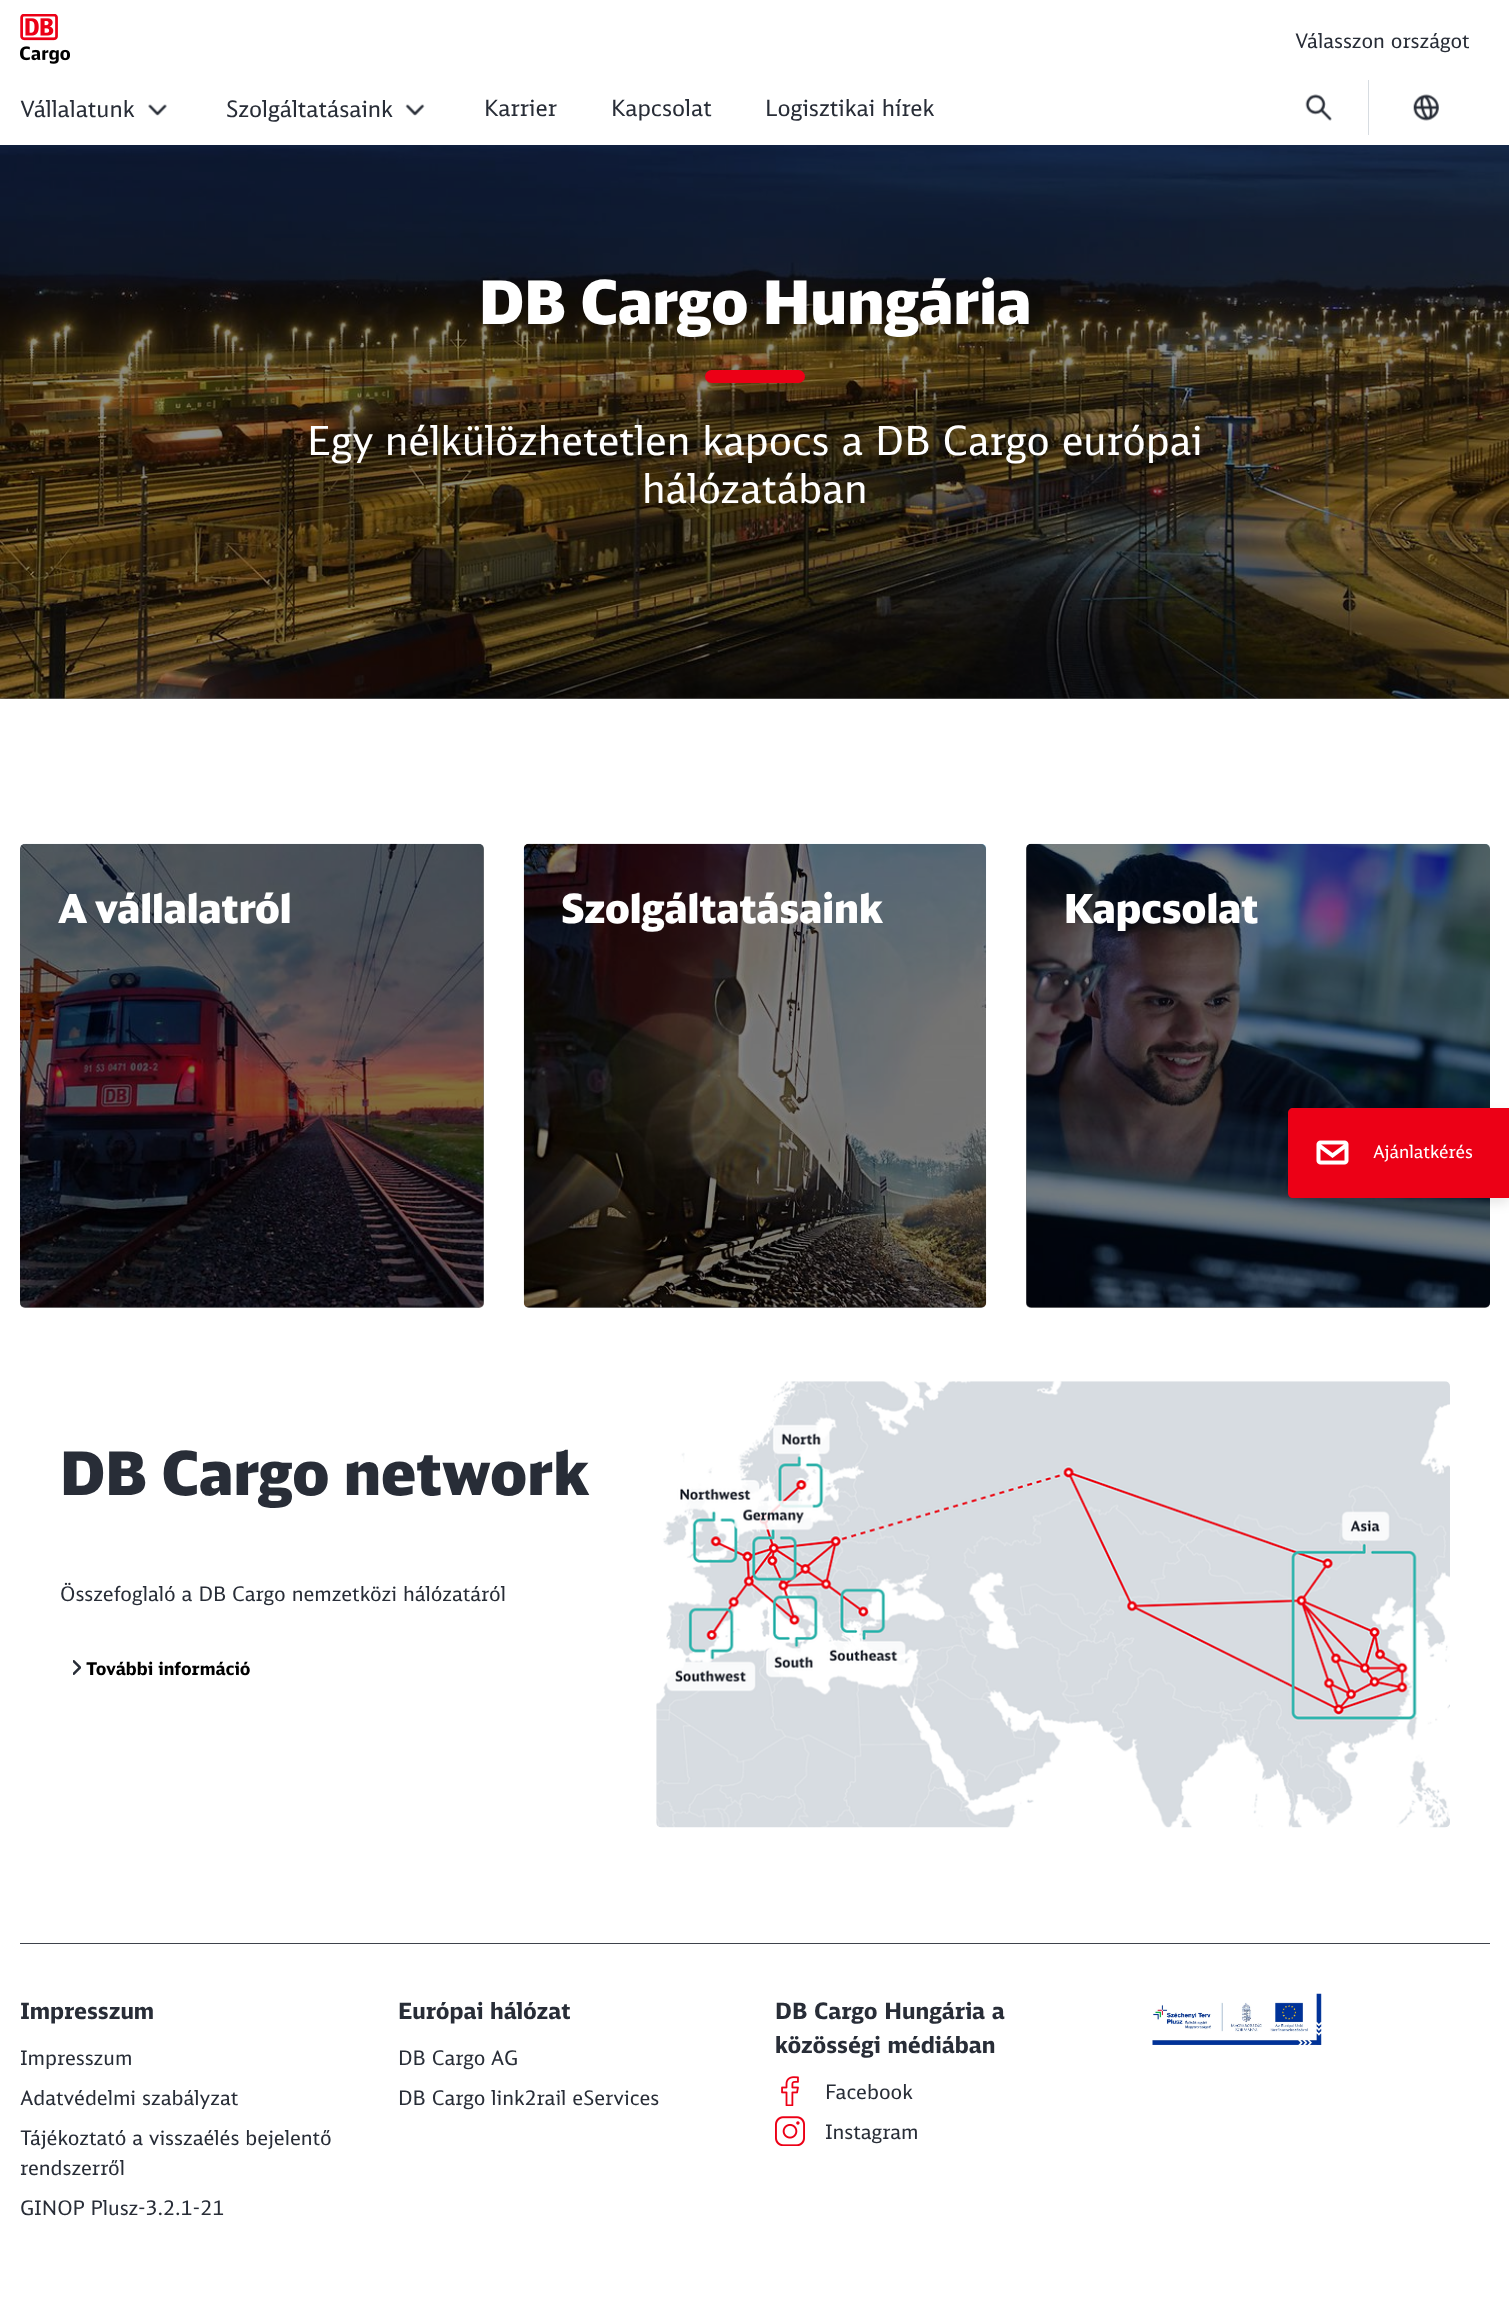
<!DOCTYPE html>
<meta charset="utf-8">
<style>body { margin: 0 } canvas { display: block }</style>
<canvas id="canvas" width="1509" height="2304"></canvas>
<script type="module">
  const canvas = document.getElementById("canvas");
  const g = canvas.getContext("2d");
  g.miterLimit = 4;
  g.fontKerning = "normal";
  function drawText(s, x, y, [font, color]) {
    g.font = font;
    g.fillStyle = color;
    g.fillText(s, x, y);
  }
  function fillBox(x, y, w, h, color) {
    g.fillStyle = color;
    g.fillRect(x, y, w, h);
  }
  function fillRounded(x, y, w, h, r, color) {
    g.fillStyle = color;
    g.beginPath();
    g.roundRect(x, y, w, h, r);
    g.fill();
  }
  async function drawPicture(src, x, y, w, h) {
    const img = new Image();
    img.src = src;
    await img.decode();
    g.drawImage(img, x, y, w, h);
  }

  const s1 = ["20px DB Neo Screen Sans", "#282D37"];
  const s2 = ["22.5px DB Neo Screen Sans", "#282D37"];
  const s3 = ["900 60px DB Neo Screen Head", "#FFFFFF"];
  const s4 = ["40px DB Neo Screen Sans", "#FFFFFF"];
  const s5 = ["900 40px DB Neo Screen Head", "#FFFFFF"];
  const s6 = ["900 60px DB Neo Screen Head", "#282D37"];
  const s7 = ["bold 17.5px DB Neo Screen Sans", "#000000"];
  const s8 = ["17.5px DB Neo Screen Sans", "#FFFFFF"];
  const s9 = ["bold 22.5px DB Neo Screen Sans", "#282D37"];

  fillBox(0, 0, 1509, 2304, "#FFFFFF");
  fillBox(0, 698, 1509, 1, "#8C8C8C");
  await drawPicture("pic1.png", 20, 14, 50, 50);
  drawText("Válasszon országot", 1295, 48, s1);
  drawText("Vállalatunk", 20, 117, s2);
  await drawPicture("pic2.png", 148, 104, 19, 12);
  drawText("Szolgáltatásaink", 226, 117, s2);
  await drawPicture("pic3.png", 405, 104, 20, 12);
  drawText("Karrier", 484, 116, s2);
  drawText("Kapcsolat", 611, 116, s2);
  drawText("Logisztikai hírek", 765, 116, s2);
  await drawPicture("pic4.png", 1305, 94, 27, 27);
  fillBox(1368, 80, 1, 55, "#D7DCE1");
  await drawPicture("pic5.png", 1413, 94, 26, 27);
  await drawPicture("pic6.png", 0, 145, 1509, 554);
  drawText("DB Cargo Hungária", 479, 324, s3);
  fillRounded(705, 370, 100, 13, 6.5, "#EC0016");
  drawText("Egy nélkülözhetetlen kapocs a DB Cargo európai", 307, 455, s4);
  drawText("hálózatában", 642, 503, s4);
  await drawPicture("pic7.png", 20, 843, 464, 465);
  fillRounded(20, 844, 464, 464, 5, "rgba(0, 0, 0, 0.5)");
  drawText("A vállalatról", 58, 923, s5);
  await drawPicture("pic8.png", 523, 843, 464, 465);
  fillRounded(524, 844, 462, 464, 5, "rgba(0, 0, 0, 0.5)");
  drawText("Szolgáltatásaink", 561, 923, s5);
  await drawPicture("pic9.png", 1026, 843, 464, 465);
  fillRounded(1026, 844, 464, 464, 5, "rgba(0, 0, 0, 0.5)");
  drawText("Kapcsolat", 1064, 923, s5);
  drawText("DB Cargo network", 60, 1495, s6);
  drawText("Összefoglaló a DB Cargo nemzetközi hálózatáról", 60, 1601, s1);
  await drawPicture("pic10.png", 73, 1660, 8, 15);
  drawText("További információ", 86, 1675, s7);
  await drawPicture("pic11.png", 656, 1381, 794, 447);
  g.fillStyle = "rgba(0, 0, 0, 0.1)";
  g.filter = "blur(6px)";
  g.beginPath();
  g.roundRect(1288, 1113, 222, 90, 5);
  g.fill();
  g.filter = "none";
  g.fillStyle = "#EC0016";
  g.beginPath();
  g.moveTo(1293, 1108);
  g.lineTo(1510, 1108);
  g.lineTo(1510, 1198);
  g.lineTo(1293, 1198);
  g.bezierCurveTo(1290, 1198, 1288, 1196, 1288, 1193);
  g.lineTo(1288, 1113);
  g.bezierCurveTo(1288, 1110, 1290, 1108, 1293, 1108);
  g.closePath();
  g.fill();
  await drawPicture("pic12.png", 1316, 1140, 33, 25);
  drawText("Ajánlatkérés", 1373, 1158, s8);
  fillBox(20, 1943, 1470, 1, "#3E424B");
  drawText("Impresszum", 20, 2019, s9);
  drawText("Impresszum", 20, 2065, s1);
  drawText("Adatvédelmi szabályzat", 20, 2105, s1);
  drawText("Tájékoztató a visszaélés bejelentő", 20, 2145, s1);
  drawText("rendszerről", 20, 2175, s1);
  drawText("GINOP Plusz-3.2.1-21", 20, 2215, s1);
  drawText("Európai hálózat", 398, 2019, s9);
  drawText("DB Cargo AG", 398, 2065, s1);
  drawText("DB Cargo link2rail eServices", 398, 2105, s1);
  drawText("DB Cargo Hungária a", 775, 2019, s9);
  drawText("közösségi médiában", 775, 2053, s9);
  await drawPicture("pic13.png", 781, 2076, 18, 30);
  drawText("Facebook", 825, 2099, s1);
  await drawPicture("pic14.png", 775, 2116, 30, 30);
  drawText("Instagram", 825, 2139, s1);
  await drawPicture("pic15.png", 1152, 1993, 170, 52);
</script>
